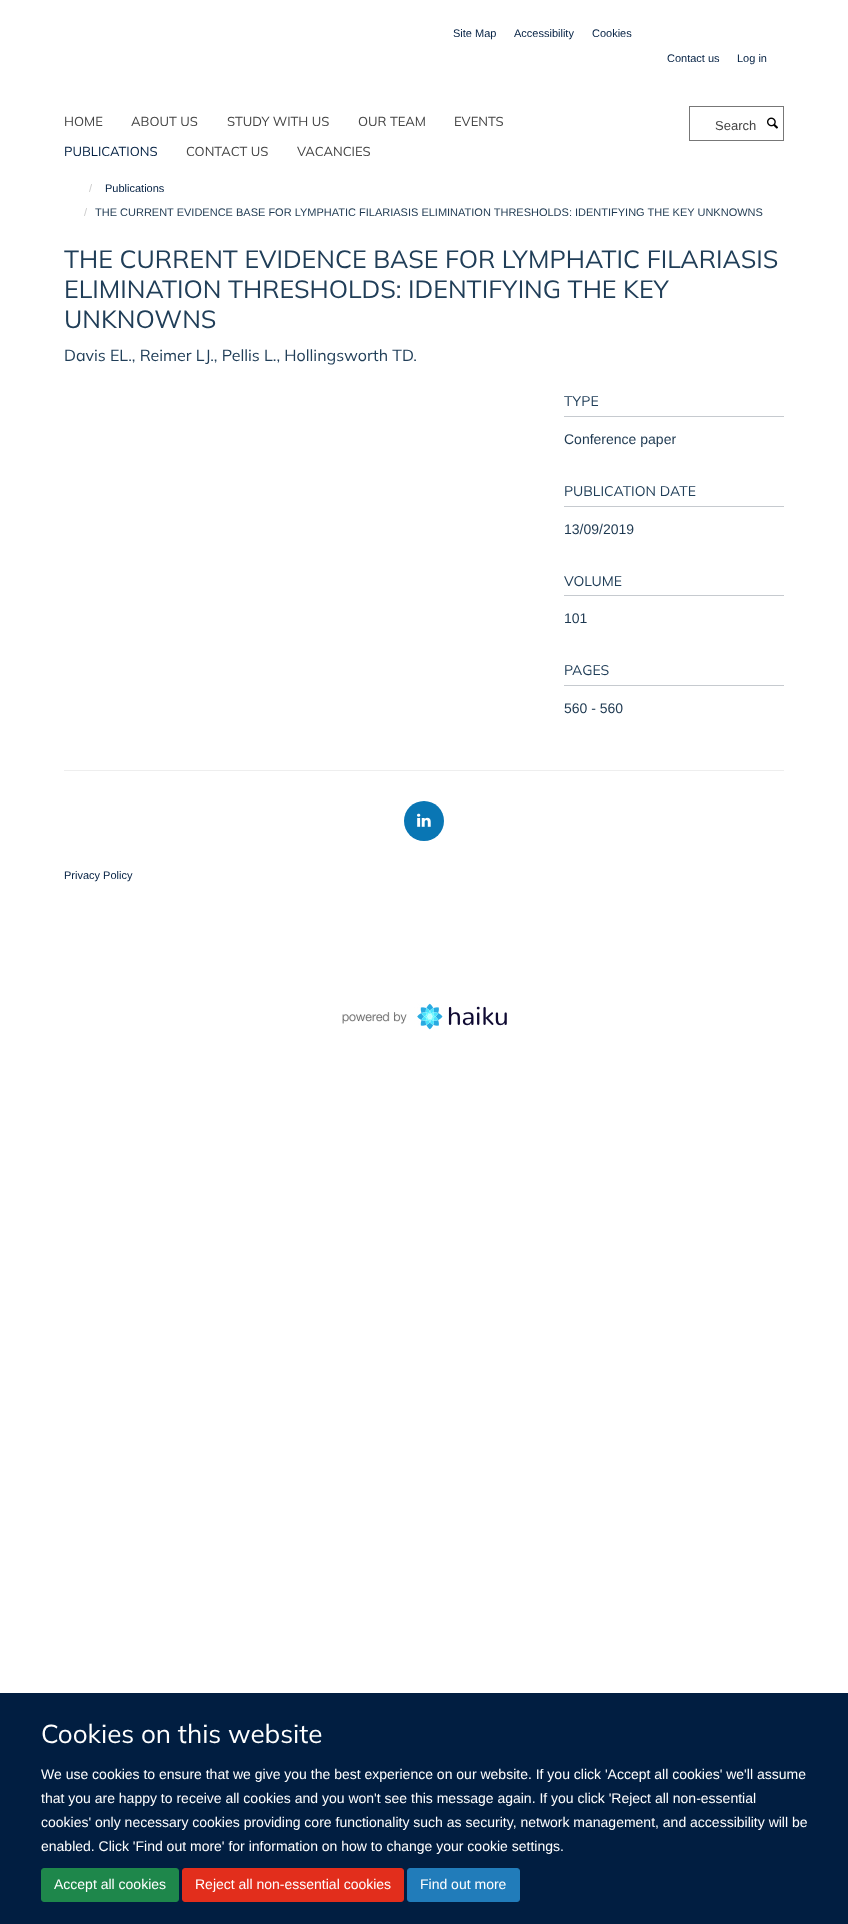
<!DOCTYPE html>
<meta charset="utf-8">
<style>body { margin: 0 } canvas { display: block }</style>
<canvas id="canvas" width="848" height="1924"></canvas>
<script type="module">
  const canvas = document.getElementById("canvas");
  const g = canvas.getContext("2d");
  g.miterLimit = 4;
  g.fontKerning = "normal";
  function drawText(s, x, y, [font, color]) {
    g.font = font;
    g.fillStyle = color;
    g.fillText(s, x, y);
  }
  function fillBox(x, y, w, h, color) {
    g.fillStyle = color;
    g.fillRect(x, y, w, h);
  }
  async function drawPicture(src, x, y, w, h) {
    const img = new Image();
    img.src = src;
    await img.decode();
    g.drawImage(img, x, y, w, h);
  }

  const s1 = ["11px Liberation Sans", "#011E41"];
  const s2 = ["13px Mulish", "#444444"];
  const s3 = ["13px Mulish", "#011E41"];
  const s4 = ["13px Liberation Sans", "#444444"];
  const s5 = ["11px Liberation Sans", "#CCCCCC"];
  const s6 = ["11px Liberation Sans", "#1D3850"];
  const s7 = ["25px Mulish", "#203E58"];
  const s8 = ["16px Mulish", "#203E58"];
  const s9 = ["14px Mulish", "#203E58"];
  const s10 = ["14px Liberation Sans", "#1D3850"];
  const s11 = ["26px Mulish", "#FFFFFF"];
  const s12 = ["14px Liberation Sans", "#FFFFFF"];

  fillBox(0, 0, 848, 1924, "#FFFFFF");
  drawText("Site Map", 453, 37, s1);
  drawText("Accessibility", 514, 37, s1);
  drawText("Cookies", 592, 37, s1);
  drawText("Contact us", 667, 62, s1);
  drawText("Log in", 737, 62, s1);
  drawText("HOME", 64, 126, s2);
  drawText("ABOUT US", 131, 126, s2);
  drawText("STUDY WITH US", 227, 126, s2);
  drawText("OUR TEAM", 358, 126, s2);
  drawText("EVENTS", 454, 126, s2);
  drawText("PUBLICATIONS", 64, 156, s3);
  drawText("CONTACT US", 186, 156, s2);
  drawText("VACANCIES", 297, 156, s2);
  g.strokeStyle = "#777777";
  g.strokeRect(689.5, 106.5, 94, 34);
  drawText("Search", 715, 130, s4);
  await drawPicture("pic1.png", 767, 117, 11, 12);
  drawText("/", 89, 192, s5);
  drawText("Publications", 105, 192, s1);
  drawText("/", 84, 216, s5);
  drawText("THE CURRENT EVIDENCE BASE FOR LYMPHATIC FILARIASIS ELIMINATION THRESHOLDS: IDENTIFYING THE KEY UNKNOWNS", 95, 216, s6);
  drawText("THE CURRENT EVIDENCE BASE FOR LYMPHATIC FILARIASIS", 64, 268, s7);
  drawText("ELIMINATION THRESHOLDS: IDENTIFYING THE KEY", 64, 298, s7);
  drawText("UNKNOWNS", 64, 328, s7);
  drawText("Davis EL., Reimer LJ., Pellis L., Hollingsworth TD.", 64, 361, s8);
  fillBox(564, 416, 220, 1, "#C6CACF");
  drawText("TYPE", 564, 406, s9);
  drawText("Conference paper", 564, 444, s10);
  fillBox(564, 506, 220, 1, "#C6CACF");
  drawText("PUBLICATION DATE", 564, 496, s9);
  drawText("13/09/2019", 564, 534, s10);
  fillBox(564, 595, 220, 1, "#C6CACF");
  drawText("VOLUME", 564, 586, s9);
  drawText("101", 564, 623, s10);
  fillBox(564, 685, 220, 1, "#C6CACF");
  drawText("PAGES", 564, 675, s9);
  drawText("560 - 560", 564, 713, s10);
  fillBox(64, 770, 720, 1, "#EEEEEE");
  g.fillStyle = "#0976B4";
  g.beginPath();
  g.arc(424, 821, 20, 0, Math.PI * 2);
  g.fill();
  await drawPicture("pic2.png", 417, 813, 14, 14);
  drawText("Privacy Policy", 64, 879, s1);
  await drawPicture("pic3.png", 342, 1003, 165, 27);
  fillBox(0, 1693, 848, 231, "#011E41");
  drawText("Cookies on this website", 41, 1743, s11);
  drawText("We use cookies to ensure that we give you the best experience on our website. If you click 'Accept all cookies' we'll assume", 41, 1779, s12);
  drawText("that you are happy to receive all cookies and you won't see this message again. If you click 'Reject all non-essential", 41, 1803, s12);
  drawText("cookies' only necessary cookies providing core functionality such as security, network management, and accessibility will be", 41, 1827, s12);
  drawText("enabled. Click 'Find out more' for information on how to change your cookie settings.", 41, 1851, s12);
  g.fillStyle = "#1E874B";
  g.beginPath();
  g.roundRect(41.5, 1868.5, 137, 33, 2.5);
  g.fill();
  g.strokeStyle = "#1E874B";
  g.stroke();
  drawText("Accept all cookies", 54, 1889, s12);
  g.fillStyle = "#E22E1C";
  g.beginPath();
  g.roundRect(182.5, 1868.5, 221, 33, 2.5);
  g.fill();
  g.strokeStyle = "#E22E1C";
  g.stroke();
  drawText("Reject all non-essential cookies", 195, 1889, s12);
  g.fillStyle = "#217CBA";
  g.beginPath();
  g.roundRect(407.5, 1868.5, 112, 33, 2.5);
  g.fill();
  g.strokeStyle = "#217CBA";
  g.stroke();
  drawText("Find out more", 420, 1889, s12);
</script>
